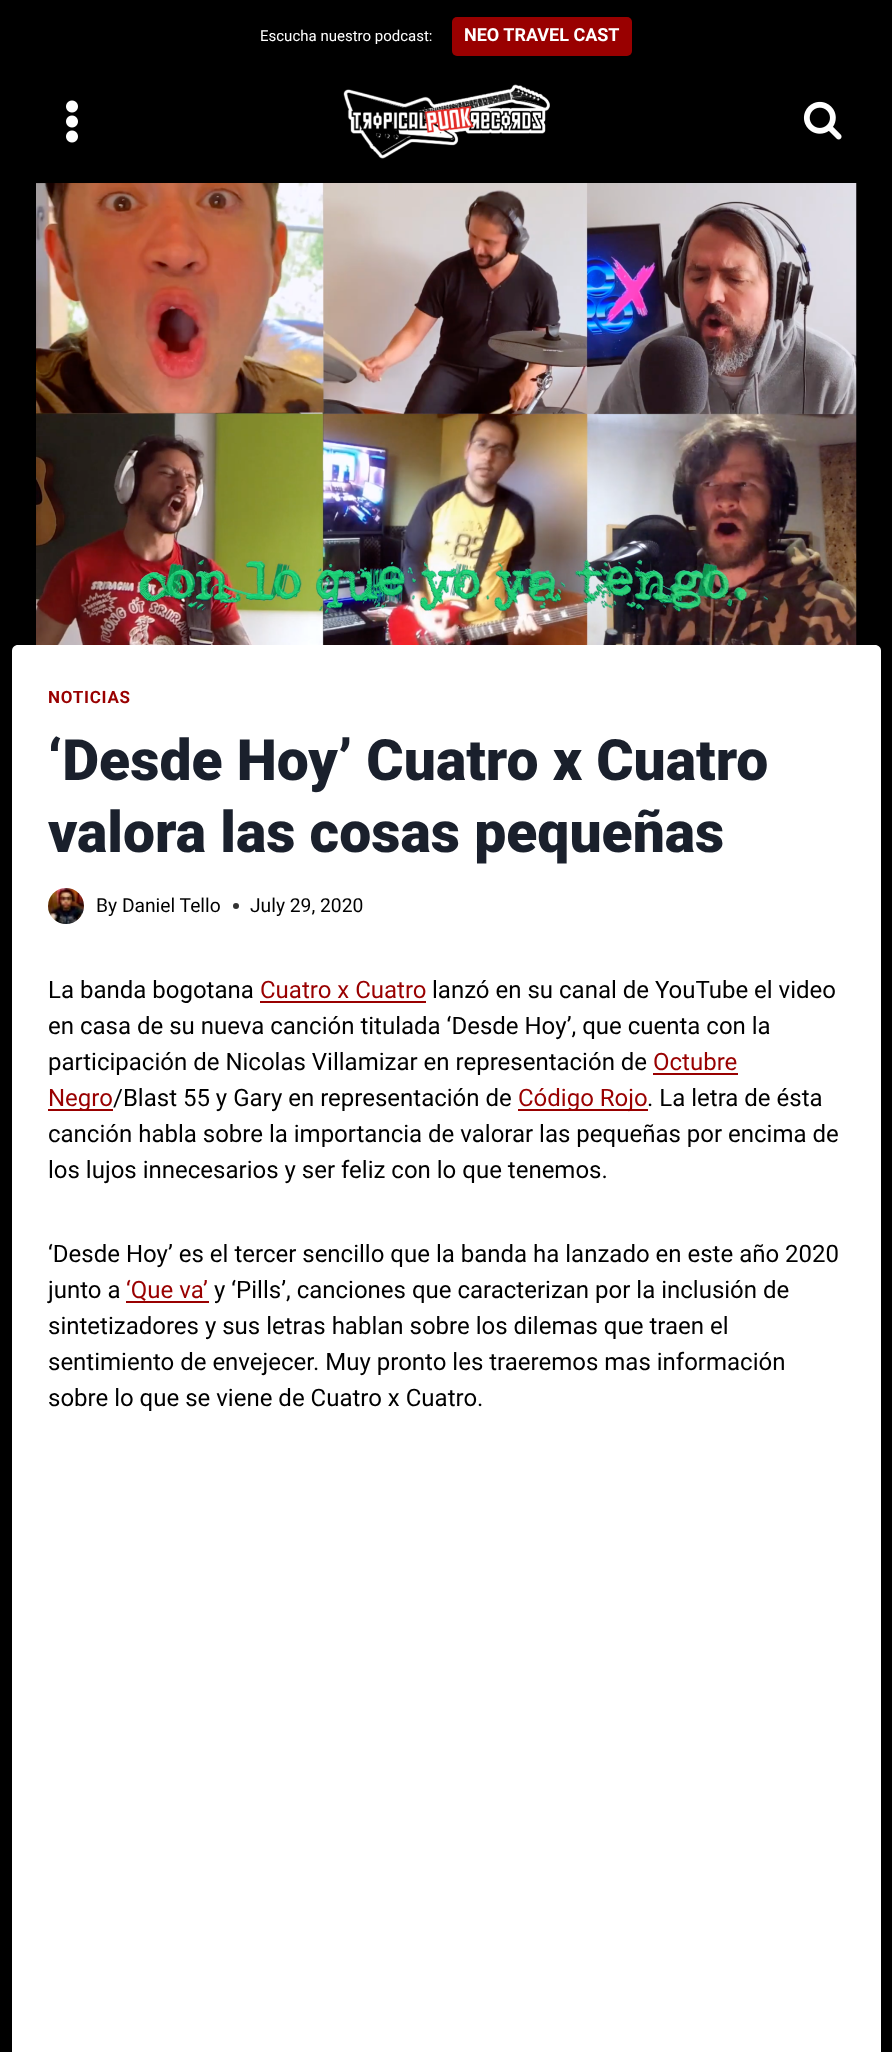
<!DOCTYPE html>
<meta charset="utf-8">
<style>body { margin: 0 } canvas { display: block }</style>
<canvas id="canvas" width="892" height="2052"></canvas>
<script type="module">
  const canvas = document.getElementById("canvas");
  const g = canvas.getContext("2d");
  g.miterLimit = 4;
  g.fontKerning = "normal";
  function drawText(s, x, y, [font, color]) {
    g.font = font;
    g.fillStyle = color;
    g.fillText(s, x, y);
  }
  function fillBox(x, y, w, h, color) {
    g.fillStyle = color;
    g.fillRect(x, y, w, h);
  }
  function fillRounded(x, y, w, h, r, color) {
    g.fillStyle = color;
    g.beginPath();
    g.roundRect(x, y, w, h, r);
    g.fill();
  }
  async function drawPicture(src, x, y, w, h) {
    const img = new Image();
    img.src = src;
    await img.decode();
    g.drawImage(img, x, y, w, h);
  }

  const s1 = ["15px Roboto", "#FFFFFF"];
  const s2 = ["bold 18px Roboto", "#FFFFFF"];
  const s3 = ["bold 17px Roboto", "#990000"];
  const s4 = ["900 57px Roboto", "#1A202C"];
  const s5 = ["19.25px Roboto", "#000000"];
  const s6 = ["24px Roboto", "#000000"];
  const s7 = ["24px Roboto", "#990000"];

  fillBox(0, 0, 892, 2052, "#000000");
  drawText("Escucha nuestro podcast:", 260, 41, s1);
  fillRounded(452, 17, 180, 39, 5, "#990000");
  drawText("NEO TRAVEL CAST", 464, 41, s2);
  await drawPicture("pic1.png", 66, 100, 12, 43);
  await drawPicture("pic2.png", 343, 84, 207, 75);
  await drawPicture("pic3.png", 803, 101, 39, 39);
  await drawPicture("pic4.png", 36, 183, 821, 462);
  g.beginPath();
  g.moveTo(18, 645);
  g.lineTo(875, 645);
  g.bezierCurveTo(878.5, 645, 881, 647.5, 881, 651);
  g.lineTo(881, 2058);
  g.lineTo(12, 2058);
  g.lineTo(12, 651);
  g.bezierCurveTo(12, 647.5, 14.5, 645, 18, 645);
  g.closePath();
  g.fill();
  g.letterSpacing = "0.75px";
  drawText("NOTICIAS", 48, 703, s3);
  g.letterSpacing = "0px";
  drawText("‘Desde Hoy’ Cuatro x Cuatro", 48, 780, s4);
  drawText("valora las cosas pequeñas", 48, 852, s4);
  await drawPicture("pic5.png", 48, 888, 36, 36);
  drawText("By Daniel Tello", 96, 912, s5);
  g.fillStyle = "#333333";
  g.beginPath();
  g.arc(236, 906, 3, 0, Math.PI * 2);
  g.fill();
  drawText("July 29, 2020", 250, 912, s5);
  drawText("La banda bogotana", 48, 998, s6);
  drawText("Cuatro x Cuatro", 260, 998, s7);
  fillBox(260, 1001, 166, 2, "#990000");
  drawText("lanzó en su canal de YouTube el video", 432, 998, s6);
  drawText("en casa de su nueva canción titulada ‘Desde Hoy’, que cuenta con la", 48, 1034, s6);
  drawText("participación de Nicolas Villamizar en representación de", 48, 1070, s6);
  drawText("Octubre", 653, 1070, s7);
  fillBox(653, 1073, 85, 2, "#990000");
  fillBox(48, 1109, 65, 2, "#990000");
  drawText("Negro", 48, 1106, s7);
  drawText("/Blast 55 y Gary en representación de", 113, 1106, s6);
  fillBox(518, 1109, 130, 2, "#990000");
  drawText("Código Rojo", 518, 1106, s7);
  drawText(". La letra de ésta", 647, 1106, s6);
  drawText("canción habla sobre la importancia de valorar las pequeñas por encima de", 48, 1142, s6);
  drawText("los lujos innecesarios y ser feliz con lo que tenemos.", 48, 1178, s6);
  drawText("‘Desde Hoy’ es el tercer sencillo que la banda ha lanzado en este año 2020", 48, 1262, s6);
  drawText("junto a", 48, 1298, s6);
  drawText("‘Que va’", 126, 1298, s7);
  fillBox(126, 1301, 83, 2, "#990000");
  drawText("y ‘Pills’, canciones que caracterizan por la inclusión de", 214, 1298, s6);
  drawText("sintetizadores y sus letras hablan sobre los dilemas que traen el", 48, 1334, s6);
  drawText("sentimiento de envejecer. Muy pronto les traeremos mas información", 48, 1370, s6);
  drawText("sobre lo que se viene de Cuatro x Cuatro.", 48, 1406, s6);
</script>
